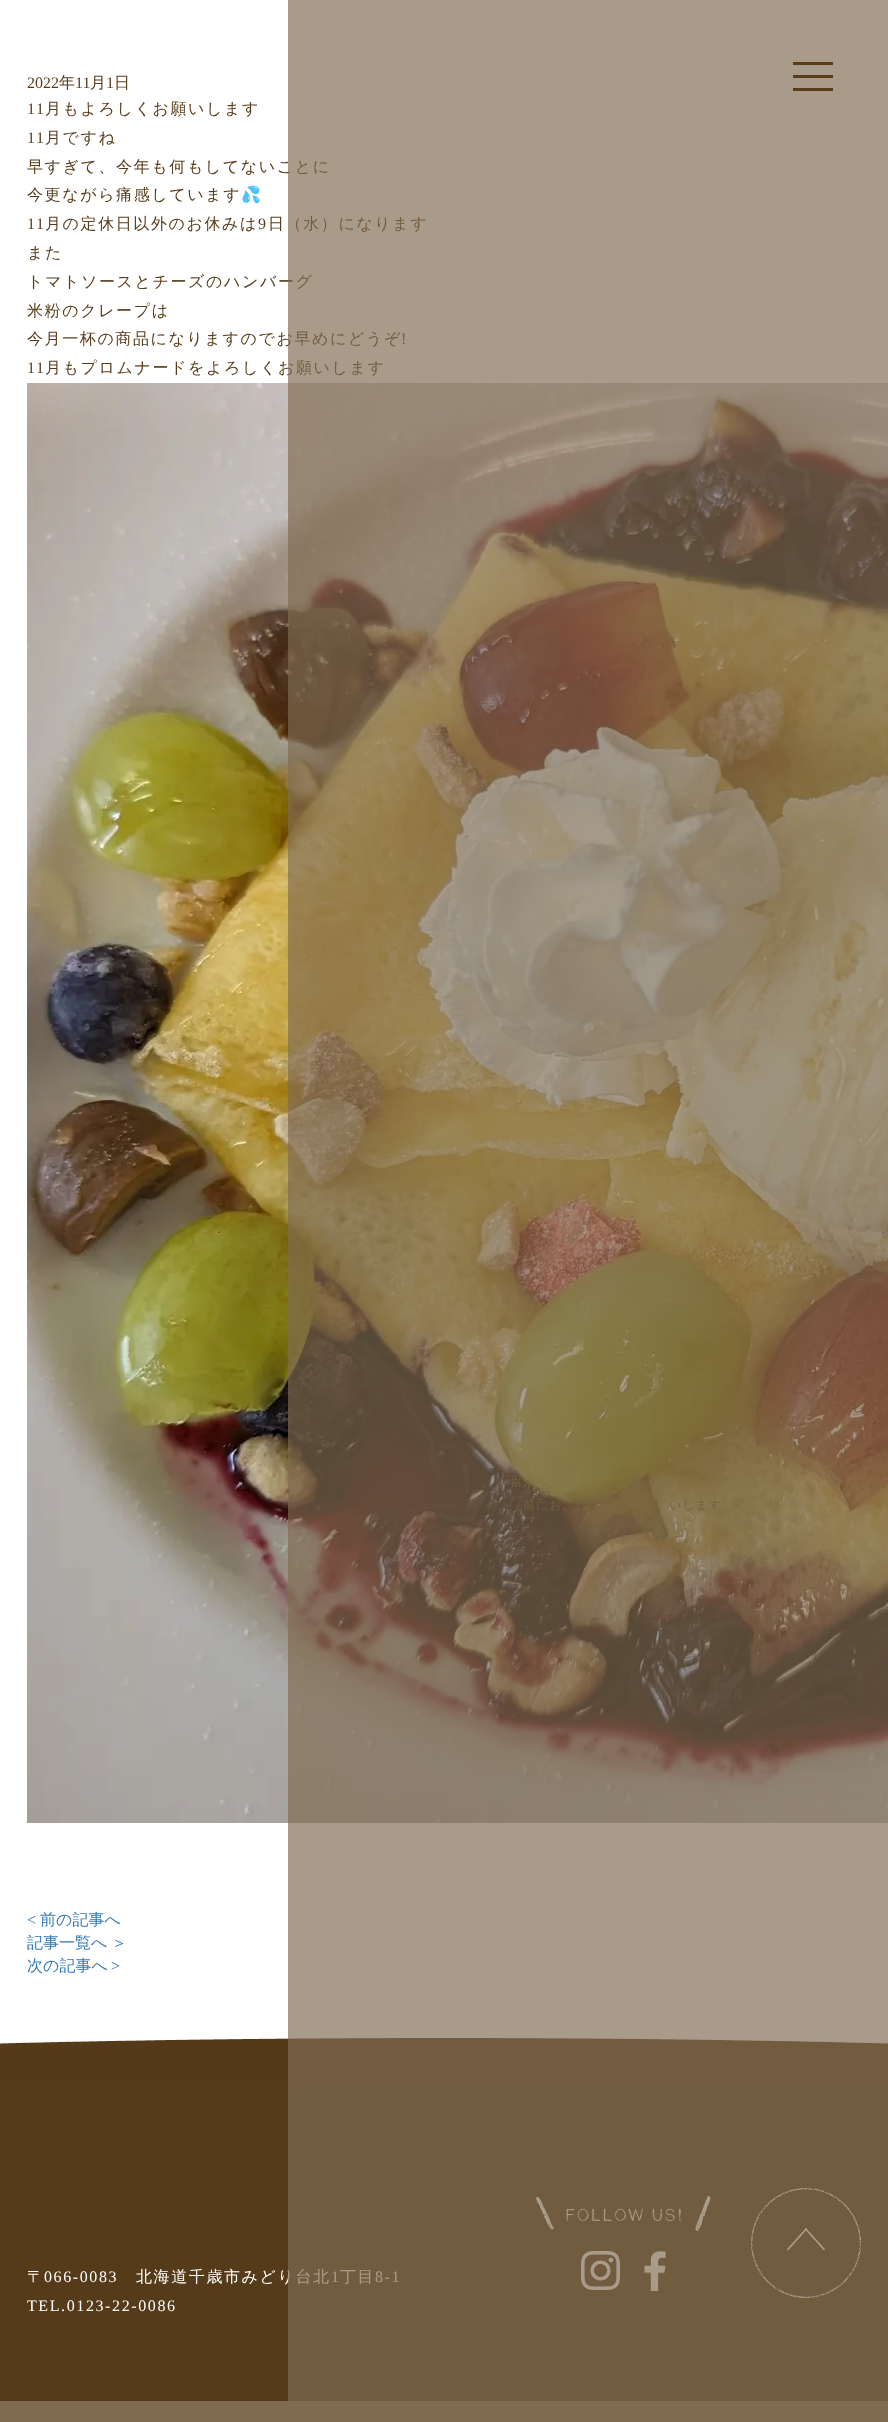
<!DOCTYPE html>
<meta charset="utf-8">
<style>body { margin: 0 } canvas { display: block }</style>
<canvas id="canvas" width="888" height="2422"></canvas>
<script type="module">
  const canvas = document.getElementById("canvas");
  const g = canvas.getContext("2d");
  g.miterLimit = 4;
  g.fontKerning = "normal";
  function drawText(s, x, y, [font, color]) {
    g.font = font;
    g.fillStyle = color;
    g.fillText(s, x, y);
  }
  function fillBox(x, y, w, h, color) {
    g.fillStyle = color;
    g.fillRect(x, y, w, h);
  }
  async function drawPicture(src, x, y, w, h) {
    const img = new Image();
    img.src = src;
    await img.decode();
    g.drawImage(img, x, y, w, h);
  }

  const s1 = ["16px Liberation Serif", "#593D1B"];
  const s2 = ["500 16px WenQuanYi Zen Hei", "#593D1B"];
  const s3 = ["16px Noto Color Emoji", "#593D1B"];
  const s4 = ["16px Liberation Serif", "#337AB7"];
  const s5 = ["500 16px WenQuanYi Zen Hei", "#337AB7"];
  const s6 = ["500 16px WenQuanYi Zen Hei", "#FFFFFF"];
  const s7 = ["16px Liberation Serif", "#FFFFFF"];
  const s8 = ["500 12px WenQuanYi Zen Hei", "#7C6C41"];
  const s9 = ["500 12px WenQuanYi Zen Hei", "#756141"];

  fillBox(0, 0, 888, 2422, "#FFFFFF");
  drawText("2022", 27, 88, s1);
  drawText("年", 59, 88, s2);
  drawText("11", 75, 88, s1);
  drawText("月", 90, 88, s2);
  drawText("1", 106, 88, s1);
  drawText("日", 114, 88, s2);
  g.letterSpacing = "1.6px";
  drawText("11", 27, 114, s1);
  drawText("月もよろしくお願いします", 45, 114, s2);
  drawText("11", 27, 143, s1);
  drawText("月ですね", 45, 143, s2);
  drawText("早すぎて、今年も何もしてないことに", 27, 172, s2);
  drawText("今更ながら痛感しています", 27, 200, s2);
  drawText("💦", 241, 200, s3);
  drawText("11", 27, 229, s1);
  drawText("月の定休日以外のお休みは", 45, 229, s2);
  drawText("9", 258, 229, s1);
  drawText("日（水）になります", 268, 229, s2);
  drawText("また", 27, 258, s2);
  drawText("トマトソースとチーズのハンバーグ", 27, 287, s2);
  drawText("米粉のクレープは", 27, 316, s2);
  drawText("今月一杯の商品になりますのでお早めにどうぞ", 27, 344, s2);
  drawText("!", 401, 344, s1);
  drawText("11", 27, 373, s1);
  drawText("月もプロムナードをよろしくお願いします", 45, 373, s2);
  await drawPicture("pic1.png", 27, 383, 861, 1440);
  g.letterSpacing = "0px";
  drawText("<", 27, 1925, s4);
  drawText("前の記事へ", 40, 1925, s5);
  g.wordSpacing = "-1px";
  drawText("記事一覧へ ＞", 27, 1948, s5);
  g.wordSpacing = "0px";
  drawText("次の記事へ", 27, 1971, s5);
  drawText(">", 111, 1971, s4);
  await drawPicture("pic2.png", 0, 2038, 888, 48);
  fillBox(0, 2086, 888, 315, "#563B1A");
  g.letterSpacing = "1.6px";
  drawText("北海道千歳市みどり台北", 136, 2282, s6);
  drawText("1", 331, 2282, s7);
  drawText("丁目", 340, 2282, s6);
  drawText("8-1", 375, 2282, s7);
  await drawPicture("pic3.png", 536, 2196, 175, 35);
  await drawPicture("pic4.png", 581, 2251, 39, 39);
  await drawPicture("pic5.png", 644, 2251, 22, 40);
  await drawPicture("pic6.png", 751, 2188, 110, 110);
  fillBox(288, 0, 600, 2401, "rgba(128, 107, 81, 0.68)");
  fillBox(793, 62, 40, 3, "#593D1B");
  fillBox(793, 75, 40, 3, "#593D1B");
  fillBox(793, 88, 40, 3, "#593D1B");
  g.letterSpacing = "1px";
  drawText("※水", 510, 1487, s8);
  drawText("前にお", 523, 1509, s9);
  drawText("いします", 669, 1509, s9);
  g.letterSpacing = "1.6px";
  drawText("〒", 27, 2282, s6);
  drawText("066-0083", 44, 2282, s7);
  drawText("TEL.0123-22-0086", 27, 2311, s7);
  fillBox(0, 2401, 888, 21, "#806B51");
</script>
